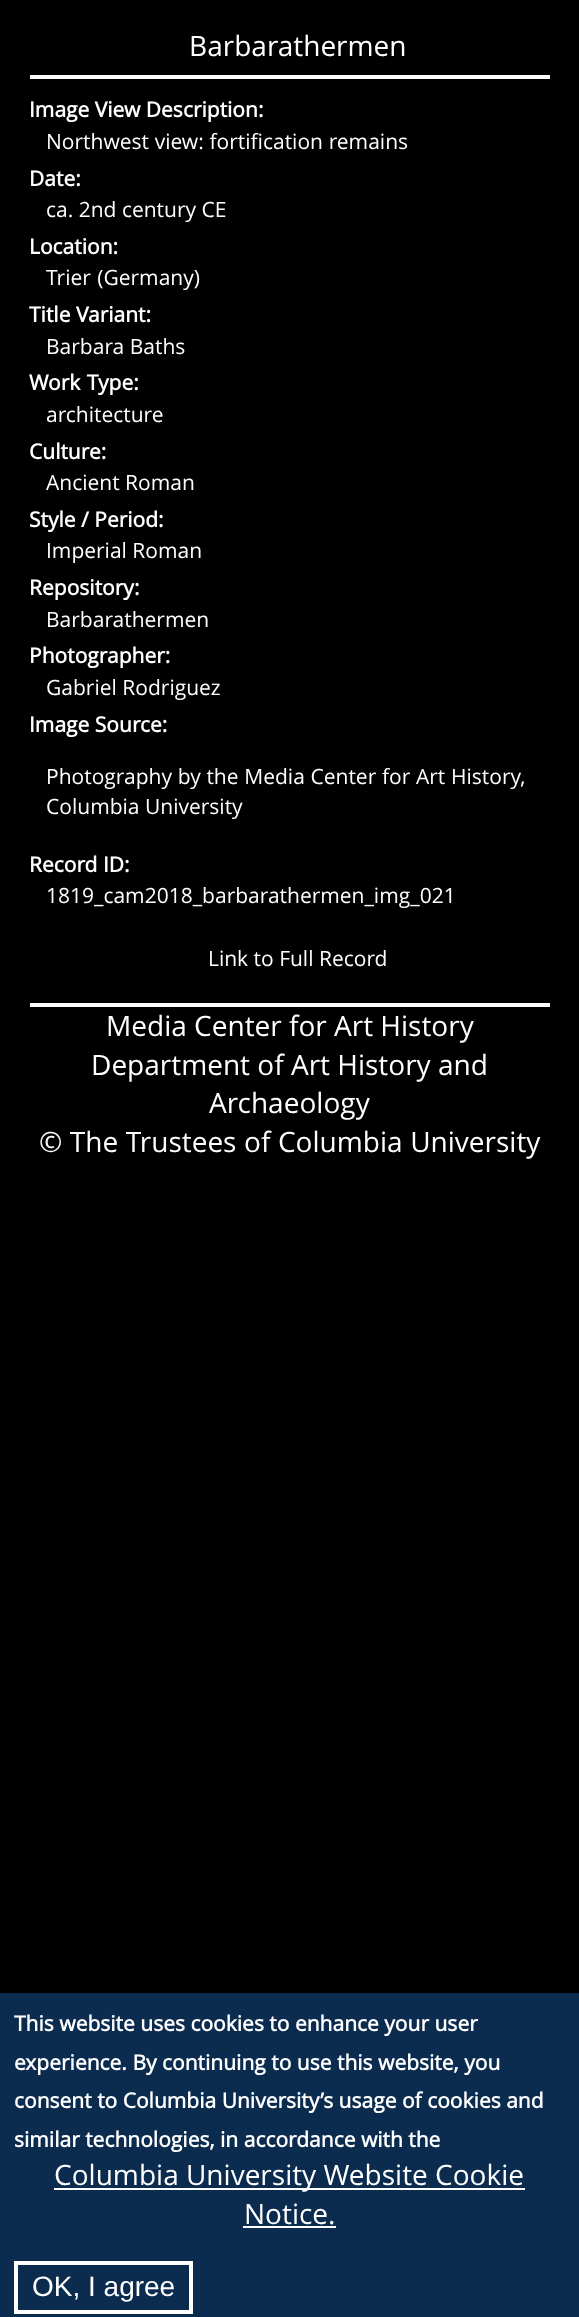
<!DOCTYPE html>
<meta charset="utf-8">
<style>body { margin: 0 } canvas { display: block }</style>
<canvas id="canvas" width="579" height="2317"></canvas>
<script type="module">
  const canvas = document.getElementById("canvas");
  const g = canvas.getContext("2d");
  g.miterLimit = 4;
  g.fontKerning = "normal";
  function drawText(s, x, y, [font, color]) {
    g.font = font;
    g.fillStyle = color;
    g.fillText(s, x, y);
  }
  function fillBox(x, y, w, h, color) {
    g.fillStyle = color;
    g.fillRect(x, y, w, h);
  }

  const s1 = ["28px Open Sans", "#FFFFFF"];
  const s2 = ["bold 21px Open Sans", "#FFFFFF"];
  const s3 = ["21px Open Sans", "#FFFFFF"];
  const s4 = ["28px Liberation Sans", "#FFFFFF"];

  fillBox(0, 0, 579, 2317, "#000000");
  fillBox(30, 75, 520, 4, "#FFFFFF");
  drawText("Barbarathermen", 189, 56, s1);
  drawText("Image View Description:", 29, 117, s2);
  g.wordSpacing = "0.25px";
  drawText("Northwest view: fortification remains", 46, 149, s3);
  g.wordSpacing = "0px";
  drawText("Date:", 29, 186, s2);
  drawText("ca. 2nd century CE", 46, 217, s3);
  drawText("Location:", 29, 254, s2);
  g.wordSpacing = "1px";
  drawText("Trier (Germany)", 46, 285, s3);
  g.wordSpacing = "0px";
  drawText("Title Variant:", 29, 322, s2);
  drawText("Barbara Baths", 46, 354, s3);
  g.wordSpacing = "1px";
  drawText("Work Type:", 29, 390, s2);
  g.wordSpacing = "0px";
  drawText("architecture", 46, 422, s3);
  drawText("Culture:", 29, 459, s2);
  drawText("Ancient Roman", 46, 490, s3);
  drawText("Style / Period:", 29, 527, s2);
  drawText("Imperial Roman", 46, 558, s3);
  drawText("Repository:", 29, 595, s2);
  drawText("Barbarathermen", 46, 627, s3);
  drawText("Photographer:", 29, 663, s2);
  drawText("Gabriel Rodriguez", 46, 695, s3);
  drawText("Image Source:", 29, 732, s2);
  g.wordSpacing = "0.25px";
  drawText("Photography by the Media Center for Art History,", 46, 784, s3);
  g.wordSpacing = "0px";
  drawText("Columbia University", 46, 814, s3);
  drawText("Record ID:", 29, 872, s2);
  drawText("1819_cam2018_barbarathermen_img_021", 46, 903, s3);
  drawText("Link to Full Record", 208, 966, s3);
  fillBox(30, 1003, 520, 4, "#FFFFFF");
  drawText("Media Center for Art History", 106, 1036, s1);
  drawText("Department of Art History and", 91, 1075, s1);
  drawText("Archaeology", 209, 1113, s1);
  g.wordSpacing = "0.25px";
  drawText("© The Trustees of Columbia University", 39, 1152, s1);
  fillBox(0, 1993, 579, 324, "#0B2C4F");
  g.wordSpacing = "0px";
  drawText("This website uses cookies to enhance your user", 14, 2031, s2);
  drawText("experience. By continuing to use this website, you", 14, 2070, s2);
  drawText("consent to Columbia University’s usage of cookies and", 14, 2108, s2);
  drawText("similar technologies, in accordance with the", 14, 2147, s2);
  fillBox(54, 2188, 471, 2, "#FFFFFF");
  drawText("Columbia University Website Cookie", 54, 2185, s1);
  drawText("Notice.", 244, 2224, s1);
  fillBox(243, 2226, 93, 2, "#FFFFFF");
  g.strokeStyle = "#FFFFFF";
  g.lineWidth = 4;
  g.strokeRect(16, 2263, 175, 49);
  drawText("OK, I agree", 32, 2296, s4);
</script>
